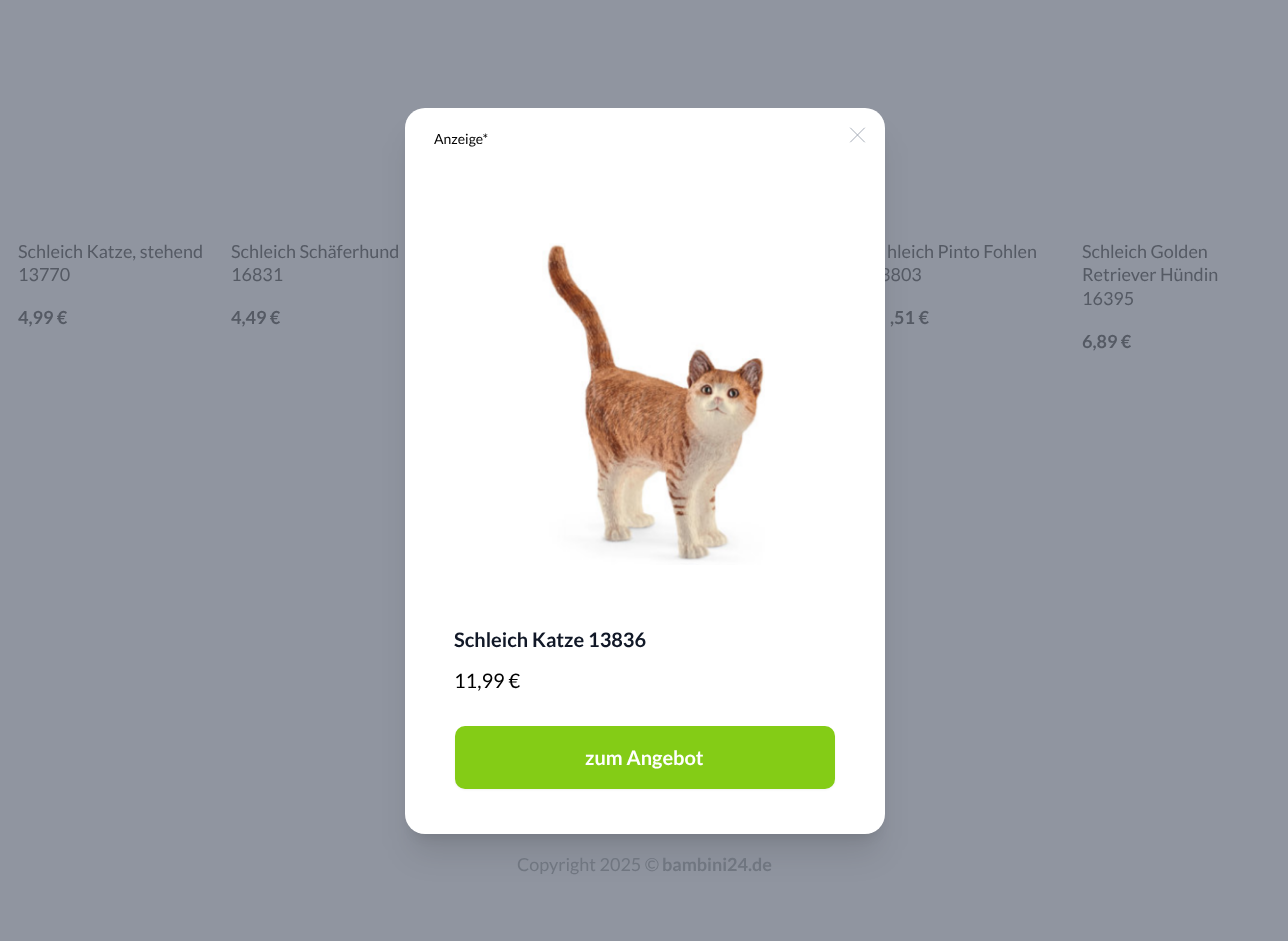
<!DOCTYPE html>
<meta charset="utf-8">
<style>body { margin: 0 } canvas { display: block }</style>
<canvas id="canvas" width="1288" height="941"></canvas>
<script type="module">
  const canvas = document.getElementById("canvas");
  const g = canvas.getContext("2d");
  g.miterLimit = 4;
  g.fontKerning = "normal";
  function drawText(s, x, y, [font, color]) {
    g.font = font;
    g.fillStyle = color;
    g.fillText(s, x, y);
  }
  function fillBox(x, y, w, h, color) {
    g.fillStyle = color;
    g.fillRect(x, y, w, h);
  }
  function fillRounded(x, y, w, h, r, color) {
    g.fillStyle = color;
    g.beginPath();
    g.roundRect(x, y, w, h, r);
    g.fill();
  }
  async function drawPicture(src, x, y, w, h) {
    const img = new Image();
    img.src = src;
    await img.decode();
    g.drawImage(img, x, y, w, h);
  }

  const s1 = ["18px Lato", "#555A64"];
  const s2 = ["14px Lato", "#000000"];
  const s3 = ["bold 20px Lato", "#111827"];
  const s4 = ["20px Lato", "#000000"];
  const s5 = ["bold 20px Lato", "#FFFFFF"];
  const s6 = ["bold 18px Lato", "#555A64"];
  const s7 = ["18px Lato", "#707680"];
  const s8 = ["bold 18px Lato", "#707680"];

  fillBox(0, 0, 1288, 941, "#9095A0");
  g.fillStyle = "rgba(0, 0, 0, 0.1)";
  g.filter = "blur(6px)";
  g.beginPath();
  g.roundRect(413, 125, 465, 711, 13);
  g.fill();
  g.filter = "none";
  g.filter = "blur(15.5px)";
  g.beginPath();
  g.roundRect(411, 139, 468, 714, 14);
  g.fill();
  g.filter = "none";
  drawText("3803", 880, 281, s1);
  fillRounded(405, 108, 480, 726, 20, "#FFFFFF");
  drawText("Anzeige*", 434, 144, s2);
  g.beginPath();
  g.moveTo(850.5, 142);
  g.lineTo(864.5, 128);
  g.moveTo(850.5, 128);
  g.lineTo(864.5, 142);
  g.strokeStyle = "#9CA3AF";
  g.lineWidth = 0.9;
  g.lineCap = "round";
  g.lineJoin = "round";
  g.stroke();
  await drawPicture("pic1.png", 542, 243, 223, 322);
  drawText("Schleich Katze 13836", 454, 647, s3);
  drawText("11,99 €", 454, 688, s4);
  g.fillStyle = "rgba(0, 0, 0, 0.05)";
  g.filter = "blur(1px)";
  g.beginPath();
  g.roundRect(455, 728, 380, 62, 10);
  g.fill();
  g.filter = "none";
  fillRounded(455, 726, 380, 63, 10, "#84CC16");
  drawText("zum Angebot", 585, 765, s5);
  drawText("Schleich Katze, stehend", 18, 258, s1);
  drawText("13770", 18, 281, s1);
  drawText("4,99 €", 18, 324, s6);
  drawText("Schleich Schäferhund", 231, 258, s1);
  drawText("16831", 231, 281, s1);
  drawText("4,49 €", 231, 324, s6);
  drawText("hleich Pinto Fohlen", 887, 258, s1);
  drawText(",51 €", 890, 324, s6);
  drawText("Schleich Golden", 1082, 258, s1);
  drawText("Retriever Hündin", 1082, 281, s1);
  drawText("16395", 1082, 305, s1);
  drawText("6,89 €", 1082, 348, s6);
  drawText("Copyright 2025 ©", 517, 871, s7);
  drawText("bambini24.de", 662, 871, s8);
</script>
